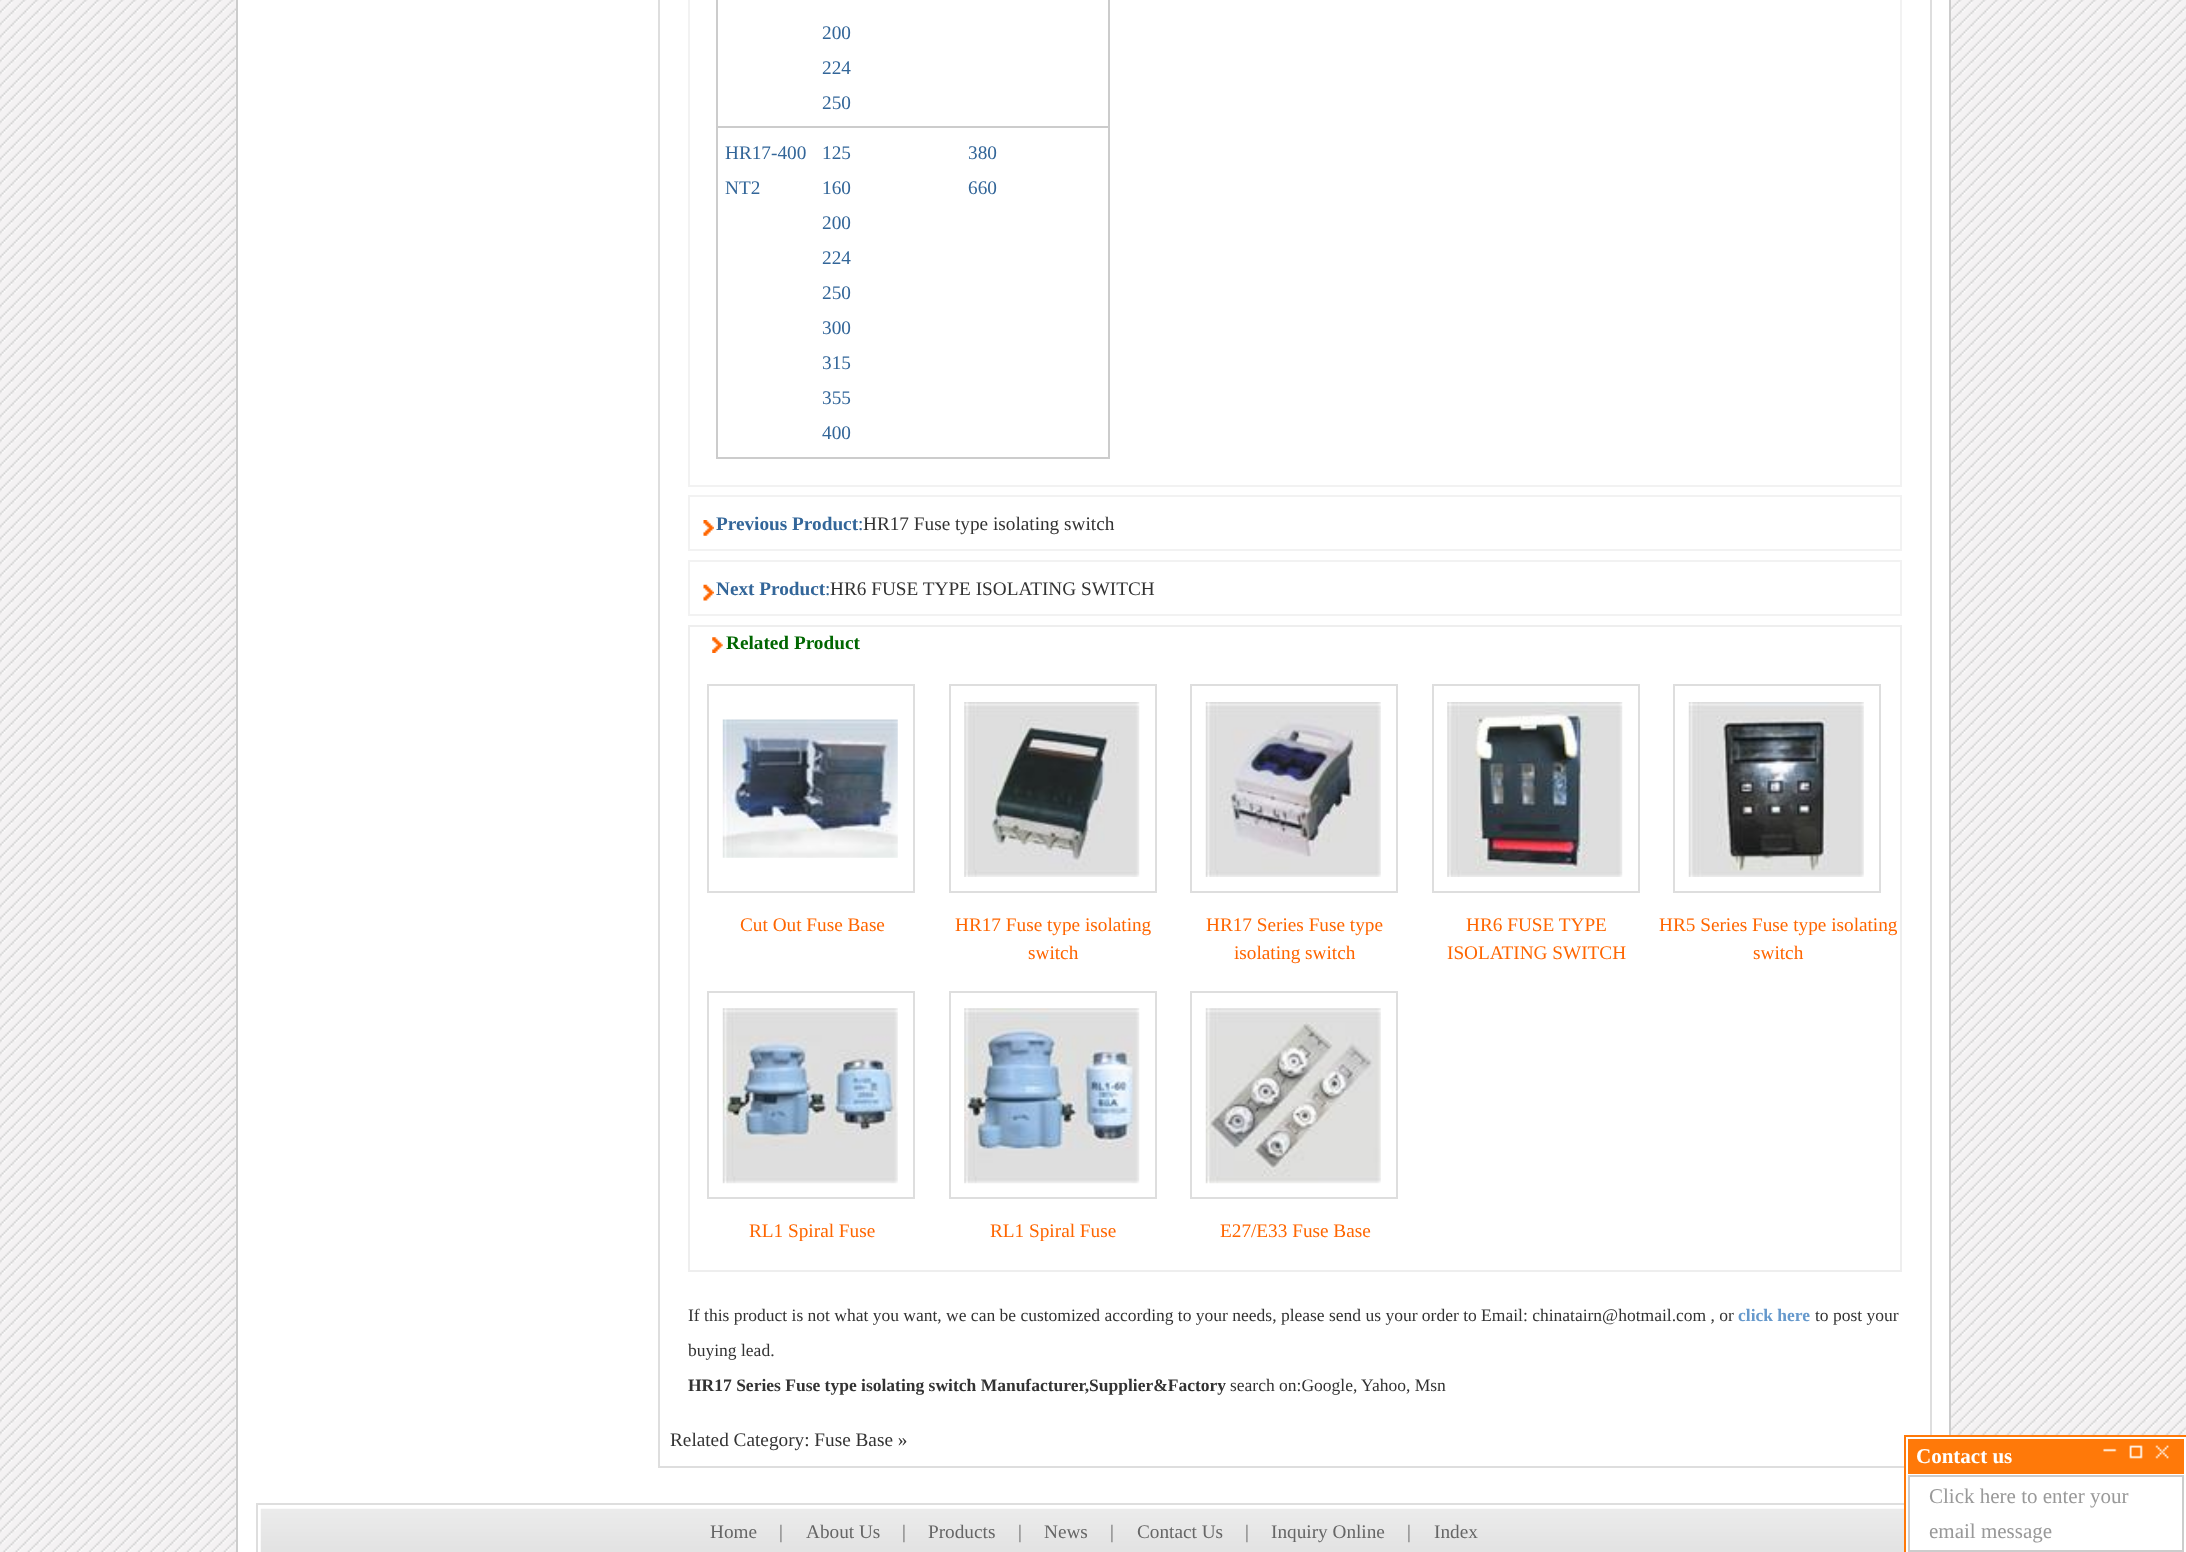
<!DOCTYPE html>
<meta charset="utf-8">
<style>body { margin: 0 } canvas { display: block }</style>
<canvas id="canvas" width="2186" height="1552"></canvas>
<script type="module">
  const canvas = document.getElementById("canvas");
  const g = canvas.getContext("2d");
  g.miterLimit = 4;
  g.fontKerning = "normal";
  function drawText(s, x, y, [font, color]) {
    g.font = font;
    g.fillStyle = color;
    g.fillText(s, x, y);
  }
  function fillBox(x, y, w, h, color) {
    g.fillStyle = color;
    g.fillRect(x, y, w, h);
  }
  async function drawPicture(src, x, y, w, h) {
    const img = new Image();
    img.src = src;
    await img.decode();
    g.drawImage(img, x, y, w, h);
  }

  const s1 = ["19.25px Liberation Serif", "#336699"];
  const s2 = ["bold 19.25px Liberation Serif", "#336699"];
  const s3 = ["19.25px Liberation Serif", "#333333"];
  const s4 = ["bold 19.25px Liberation Serif", "#006600"];
  const s5 = ["19.25px Liberation Serif", "#FF6600"];
  const s6 = ["17.5px Liberation Serif", "#333333"];
  const s7 = ["bold 17.5px Liberation Serif", "#6699CC"];
  const s8 = ["bold 17.5px Liberation Serif", "#333333"];
  const s9 = ["19.25px Liberation Serif", "#666666"];
  const s10 = ["bold 21px Liberation Serif", "#FFFFFF"];
  const s11 = ["21px Liberation Serif", "#999999"];

  fillBox(0, 0, 2186, 1552, "#FFFFFF");
  await drawPicture("pic1.png", 0, 0, 2186, 1552);
  g.beginPath();
  g.rect(237, -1, 1713, 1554);
  g.fill();
  g.strokeStyle = "#CCCCCC";
  g.lineWidth = 2;
  g.stroke();
  g.strokeStyle = "#DEDEDE";
  g.strokeRect(659, -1, 1272, 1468);
  g.strokeStyle = "#F2F2F2";
  g.strokeRect(689, -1, 1212, 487);
  fillBox(716, 0, 394, 459, "#CCCCCC");
  fillBox(718, 0, 390, 126, "#FFFFFF");
  drawText("200", 822, 39, s1);
  drawText("224", 822, 74, s1);
  drawText("250", 822, 109, s1);
  fillBox(718, 128, 390, 329, "#FFFFFF");
  drawText("HR17-400", 725, 159, s1);
  drawText("NT2", 725, 194, s1);
  drawText("125", 822, 159, s1);
  drawText("160", 822, 194, s1);
  drawText("200", 822, 229, s1);
  drawText("224", 822, 264, s1);
  drawText("250", 822, 299, s1);
  drawText("300", 822, 334, s1);
  drawText("315", 822, 369, s1);
  drawText("355", 822, 404, s1);
  drawText("400", 822, 439, s1);
  drawText("380", 968, 159, s1);
  drawText("660", 968, 194, s1);
  await drawPicture("pic2.png", 703, 520, 11, 16);
  g.strokeRect(689, 496, 1212, 54);
  drawText("Previous Product", 716, 530, s2);
  drawText(":", 858, 530, s1);
  drawText("HR17 Fuse type isolating switch", 863, 530, s3);
  await drawPicture("pic3.png", 703, 584, 11, 17);
  g.strokeRect(689, 561, 1212, 54);
  drawText("Next Product", 716, 595, s2);
  drawText(":", 825, 595, s1);
  drawText("HR6 FUSE TYPE ISOLATING SWITCH", 830, 595, s3);
  g.strokeStyle = "#EEEEEE";
  g.strokeRect(689, 626, 1212, 645);
  await drawPicture("pic4.png", 712, 637, 11, 16);
  drawText("Related Product", 726, 649, s4);
  g.strokeStyle = "#DEDEDE";
  g.strokeRect(708, 685, 206, 207);
  await drawPicture("pic5.png", 722, 719, 176, 139);
  drawText("Cut Out Fuse Base", 740, 931, s5);
  g.strokeRect(950, 685, 206, 207);
  await drawPicture("pic6.png", 964, 702, 176, 175);
  drawText("HR17 Fuse type isolating", 955, 931, s5);
  drawText("switch", 1028, 959, s5);
  g.strokeRect(1191, 685, 206, 207);
  await drawPicture("pic7.png", 1205, 702, 176, 175);
  drawText("HR17 Series Fuse type", 1206, 931, s5);
  drawText("isolating switch", 1234, 959, s5);
  g.strokeRect(1433, 685, 206, 207);
  await drawPicture("pic8.png", 1447, 702, 176, 175);
  drawText("HR6 FUSE TYPE", 1466, 931, s5);
  drawText("ISOLATING SWITCH", 1447, 959, s5);
  g.strokeRect(1674, 685, 206, 207);
  await drawPicture("pic9.png", 1688, 702, 176, 175);
  drawText("HR5 Series Fuse type isolating", 1659, 931, s5);
  drawText("switch", 1753, 959, s5);
  g.strokeRect(708, 992, 206, 206);
  await drawPicture("pic10.png", 722, 1008, 176, 176);
  drawText("RL1 Spiral Fuse", 749, 1237, s5);
  g.strokeRect(950, 992, 206, 206);
  await drawPicture("pic11.png", 964, 1008, 176, 176);
  drawText("RL1 Spiral Fuse", 990, 1237, s5);
  g.strokeRect(1191, 992, 206, 206);
  await drawPicture("pic12.png", 1205, 1008, 176, 176);
  drawText("E27/E33 Fuse Base", 1220, 1237, s5);
  drawText("If this product is not what you want, we can be customized according to your needs, please send us your order to Email: chinatairn@hotmail.com , or", 688, 1321, s6);
  drawText("click here", 1738, 1321, s7);
  drawText("to post your", 1815, 1321, s6);
  drawText("buying lead.", 688, 1356, s6);
  drawText("HR17 Series Fuse type isolating switch Manufacturer,Supplier&Factory", 688, 1391, s8);
  drawText("search on:Google,", 1230, 1391, s6);
  drawText("Yahoo, Msn", 1361, 1391, s6);
  drawText("Related Category: Fuse Base »", 670, 1446, s3);
  g.strokeRect(257, 1504, 1674, 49);
  await drawPicture("pic13.png", 260, 1508, 1644, 44);
  drawText("Home", 710, 1538, s9);
  drawText("|", 779, 1538, s9);
  drawText("About Us", 806, 1538, s9);
  drawText("|", 902, 1538, s9);
  drawText("Products", 928, 1538, s9);
  drawText("|", 1018, 1538, s9);
  drawText("News", 1044, 1538, s9);
  drawText("|", 1110, 1538, s9);
  drawText("Contact Us", 1137, 1538, s9);
  drawText("|", 1245, 1538, s9);
  drawText("Inquiry Online", 1271, 1538, s9);
  drawText("|", 1407, 1538, s9);
  drawText("Index", 1434, 1538, s9);
  g.fillStyle = "#FFFFFF";
  g.beginPath();
  g.rect(1905, 1436, 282, 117);
  g.fill();
  g.strokeStyle = "#FF7909";
  g.stroke();
  fillBox(1908, 1439, 276, 35, "#FF7909");
  drawText("Contact us", 1916, 1463, s10);
  await drawPicture("pic14.png", 2103, 1448, 14, 4);
  await drawPicture("pic15.png", 2129, 1445, 14, 14);
  await drawPicture("pic16.png", 2155, 1445, 14, 14);
  g.strokeStyle = "#CCCCCC";
  g.strokeRect(1909, 1476, 274, 75);
  drawText("Click here to enter your", 1929, 1503, s11);
  drawText("email message", 1929, 1538, s11);
</script>
